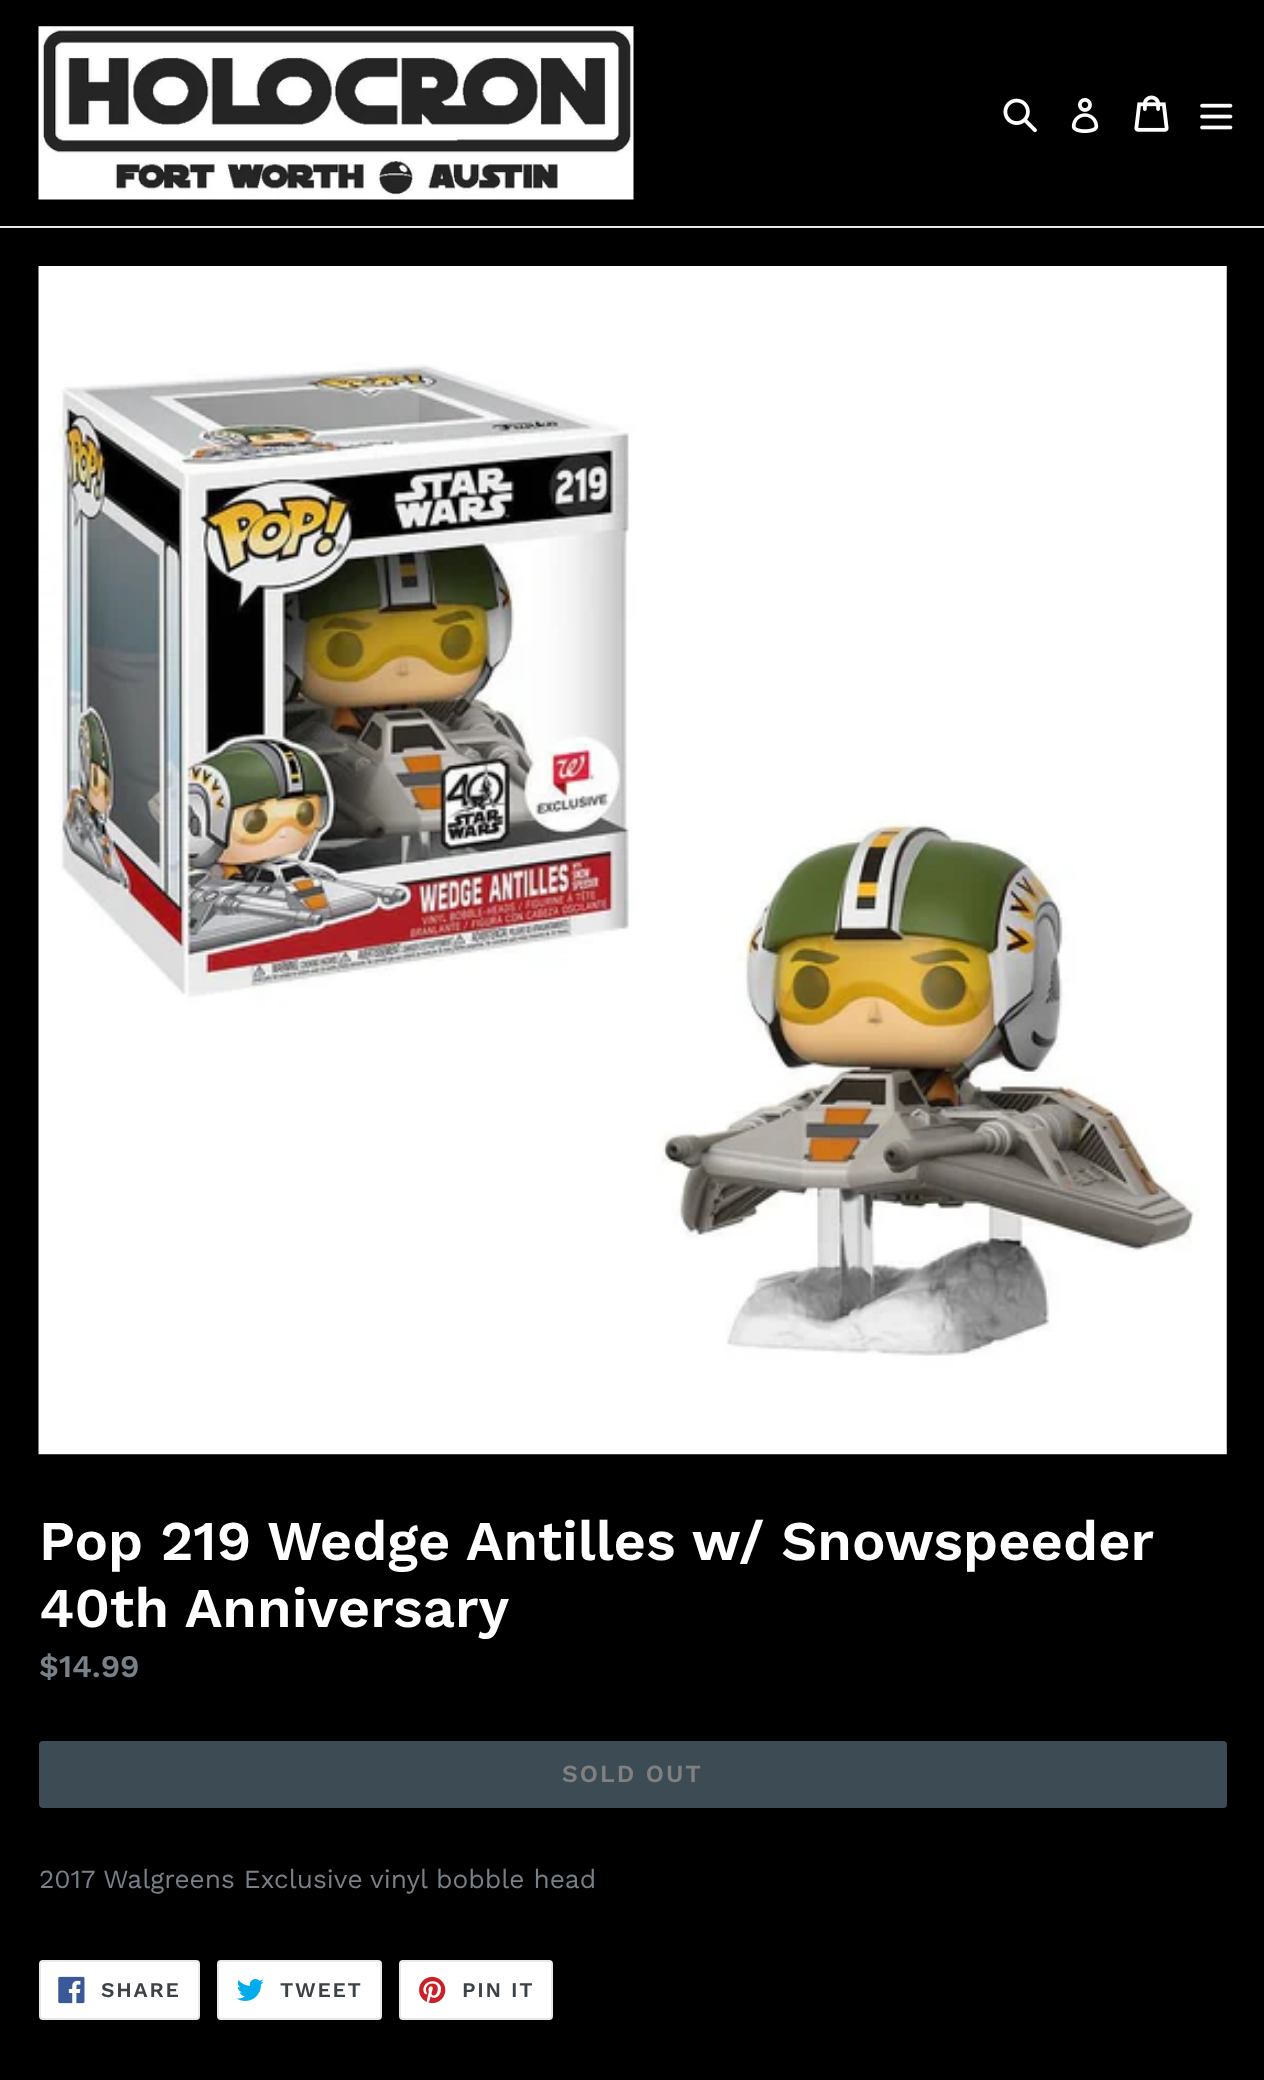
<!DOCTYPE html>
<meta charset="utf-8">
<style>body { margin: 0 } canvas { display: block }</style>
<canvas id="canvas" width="1264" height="2080"></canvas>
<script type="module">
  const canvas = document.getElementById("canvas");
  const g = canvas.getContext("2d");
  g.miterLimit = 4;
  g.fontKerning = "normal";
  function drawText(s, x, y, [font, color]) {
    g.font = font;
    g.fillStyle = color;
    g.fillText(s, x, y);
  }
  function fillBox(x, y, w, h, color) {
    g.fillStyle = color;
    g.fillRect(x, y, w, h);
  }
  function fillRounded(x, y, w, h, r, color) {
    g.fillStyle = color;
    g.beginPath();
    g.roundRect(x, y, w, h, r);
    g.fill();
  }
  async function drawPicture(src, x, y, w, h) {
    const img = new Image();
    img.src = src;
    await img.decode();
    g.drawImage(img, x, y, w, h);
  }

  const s1 = ["600 56px Work Sans", "#FFFFFF"];
  const s2 = ["600 31.5px Work Sans", "#788188"];
  const s3 = ["600 24.5px Work Sans", "#808080"];
  const s4 = ["26.25px Work Sans", "#788188"];
  const s5 = ["600 21px Work Sans", "#3D4246"];

  fillBox(0, 0, 1264, 2080, "#000000");
  fillBox(0, 226, 1264, 2, "#E8E9EB");
  await drawPicture("pic1.png", 38, 26, 596, 174);
  await drawPicture("pic2.png", 1003, 98, 34, 35);
  await drawPicture("pic3.png", 1071, 98, 28, 35);
  await drawPicture("pic4.png", 1134, 95, 35, 37);
  await drawPicture("pic5.png", 1200, 103, 33, 27);
  await drawPicture("pic6.png", 38, 266, 1189, 1189);
  drawText("Pop 219 Wedge Antilles w/ Snowspeeder", 39, 1560, s1);
  drawText("40th Anniversary", 39, 1627, s1);
  drawText("$14.99", 39, 1677, s2);
  fillRounded(39, 1741, 1188, 67, 4, "#3C4B54");
  g.letterSpacing = "2px";
  drawText("SOLD OUT", 562, 1782, s3);
  g.letterSpacing = "0px";
  drawText("2017 Walgreens Exclusive", 39, 1888, s4);
  drawText("vinyl bobble head", 370, 1888, s4);
  g.fillStyle = "#FFFFFF";
  g.beginPath();
  g.roundRect(40, 1961, 159, 58, 3);
  g.fill();
  g.strokeStyle = "#E8E9EB";
  g.lineWidth = 2;
  g.stroke();
  await drawPicture("pic7.png", 58, 1976, 27, 28);
  g.letterSpacing = "1.75px";
  drawText("SHARE", 101, 1997, s5);
  g.fillStyle = "#FFFFFF";
  g.beginPath();
  g.roundRect(218, 1961, 163, 58, 3);
  g.fill();
  g.stroke();
  await drawPicture("pic8.png", 236, 1979, 28, 22);
  drawText("TWEET", 280, 1997, s5);
  g.fillStyle = "#FFFFFF";
  g.beginPath();
  g.roundRect(400, 1961, 152, 58, 3);
  g.fill();
  g.stroke();
  await drawPicture("pic9.png", 419, 1976, 27, 28);
  drawText("PIN IT", 462, 1997, s5);
</script>
